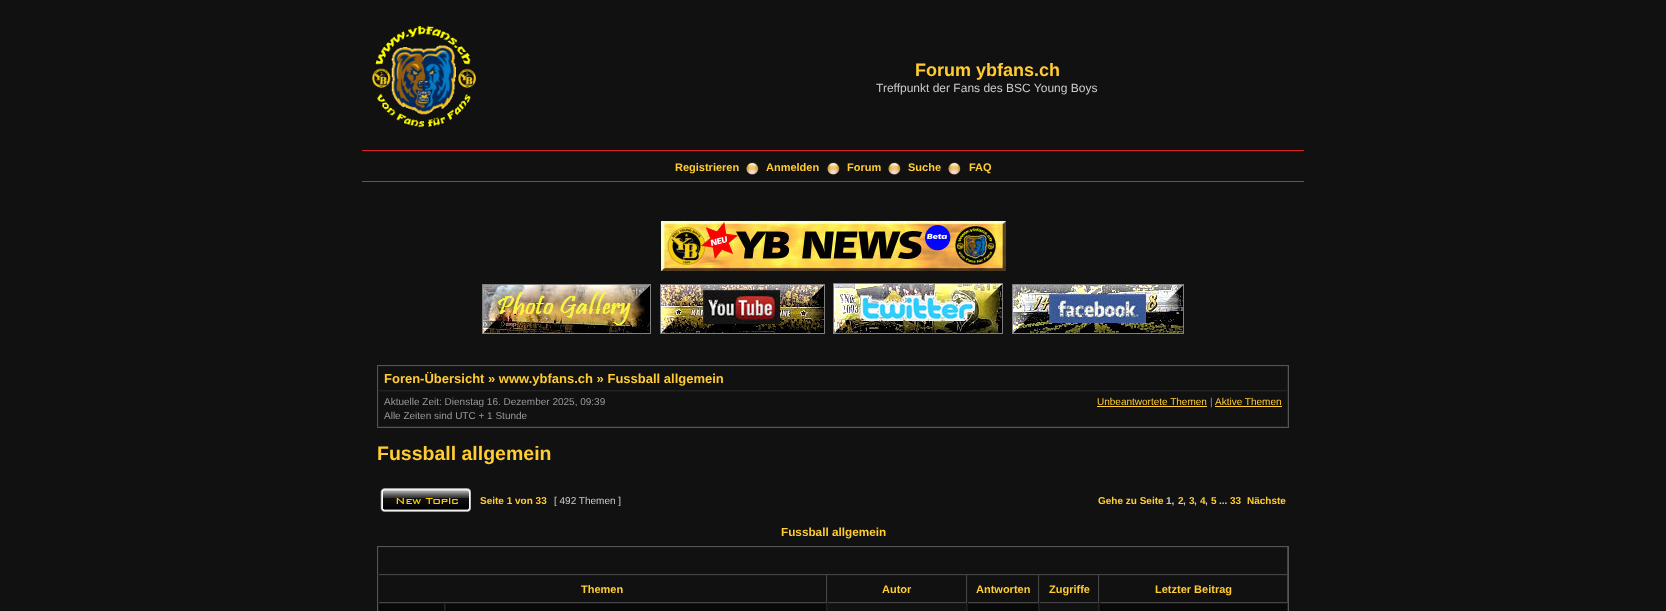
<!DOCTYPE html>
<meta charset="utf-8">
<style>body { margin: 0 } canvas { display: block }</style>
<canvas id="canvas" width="1666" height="611"></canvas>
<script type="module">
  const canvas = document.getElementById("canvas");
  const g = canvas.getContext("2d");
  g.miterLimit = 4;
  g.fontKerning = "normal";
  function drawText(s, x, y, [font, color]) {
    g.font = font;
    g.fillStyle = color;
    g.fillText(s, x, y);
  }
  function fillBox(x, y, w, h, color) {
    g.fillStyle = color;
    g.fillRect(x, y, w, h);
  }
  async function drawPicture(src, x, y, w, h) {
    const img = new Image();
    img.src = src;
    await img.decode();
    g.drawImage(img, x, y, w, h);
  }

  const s1 = ["bold 18px Liberation Sans", "#FFCC33"];
  const s2 = ["12px Liberation Sans", "#CCCCCC"];
  const s3 = ["bold 11px Liberation Sans", "#FFCC33"];
  const s4 = ["bold 13px Liberation Sans", "#FFCC33"];
  const s5 = ["10px Liberation Sans", "#999999"];
  const s6 = ["10px Liberation Sans", "#FFCC33"];
  const s7 = ["bold 19.5px Liberation Sans", "#FFCC33"];
  const s8 = ["bold 10px Liberation Sans", "#FFCC33"];
  const s9 = ["10px Liberation Sans", "#CCCCCC"];
  const s10 = ["bold 10px Liberation Sans", "#CCCCCC"];
  const s11 = ["bold 11.75px Liberation Sans", "#FFCC33"];

  fillBox(0, 0, 1666, 611, "#111111");
  await drawPicture("pic1.png", 372, 25, 104, 102);
  drawText("Forum ybfans.ch", 915, 76, s1);
  drawText("Treffpunkt der Fans des BSC Young Boys", 876, 92, s2);
  fillBox(362, 150, 942, 1, "#DD2222");
  fillBox(362, 181, 942, 1, "#DD2222");
  drawText("Registrieren", 675, 171, s3);
  await drawPicture("pic2.png", 746, 162, 13, 13);
  drawText("Anmelden", 766, 171, s3);
  await drawPicture("pic2.png", 827, 162, 13, 13);
  drawText("Forum", 847, 171, s3);
  await drawPicture("pic2.png", 888, 162, 13, 13);
  drawText("Suche", 908, 171, s3);
  await drawPicture("pic2.png", 948, 162, 13, 13);
  drawText("FAQ", 969, 171, s3);
  await drawPicture("pic3.png", 661, 221, 345, 50);
  await drawPicture("pic4.png", 482, 284, 169, 50);
  await drawPicture("pic5.png", 660, 284, 165, 50);
  await drawPicture("pic6.png", 833, 283, 170, 51);
  await drawPicture("pic7.png", 1012, 284, 172, 50);
  g.strokeStyle = "#555555";
  g.strokeRect(377.5, 365.5, 911, 62);
  fillBox(378, 366, 910, 1, "#181818");
  fillBox(1287, 366, 1, 25, "#222222");
  fillBox(378, 390, 910, 1, "#222222");
  fillBox(378, 366, 1, 25, "#181818");
  drawText("Foren-Übersicht » www.ybfans.ch » Fussball allgemein", 384, 383, s4);
  fillBox(378, 391, 910, 1, "#181818");
  fillBox(1287, 391, 1, 36, "#222222");
  fillBox(378, 426, 910, 1, "#222222");
  fillBox(378, 391, 1, 36, "#181818");
  drawText("Aktuelle Zeit: Dienstag 16. Dezember 2025, 09:39", 384, 405, s5);
  drawText("Alle Zeiten sind UTC + 1 Stunde", 384, 419, s5);
  drawText("Unbeantwortete Themen", 1097, 405, s6);
  fillBox(1097, 406, 110, 1, "#FFCC33");
  drawText("|", 1210, 405, s5);
  drawText("Aktive Themen", 1215, 405, s6);
  fillBox(1215, 406, 67, 1, "#FFCC33");
  drawText("Fussball allgemein", 377, 460, s7);
  await drawPicture("pic8.png", 380, 488, 91, 24);
  drawText("Seite 1 von 33", 480, 504, s8);
  drawText("[ 492 Themen ]", 554, 504, s9);
  drawText("Gehe zu Seite", 1098, 504, s8);
  drawText("1,", 1166, 504, s10);
  drawText("2", 1178, 504, s8);
  drawText(",", 1183, 504, s10);
  drawText("3", 1189, 504, s8);
  drawText(",", 1194, 504, s10);
  drawText("4", 1200, 504, s8);
  drawText(",", 1205, 504, s10);
  drawText("5", 1211, 504, s8);
  drawText("...", 1219, 504, s10);
  drawText("33", 1230, 504, s8);
  drawText("Nächste", 1247, 504, s8);
  drawText("Fussball allgemein", 781, 536, s11);
  g.strokeRect(377.5, 546.5, 911, 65);
  fillBox(378, 547, 910, 1, "#181818");
  fillBox(1287, 547, 1, 28, "#444444");
  fillBox(378, 574, 910, 1, "#444444");
  fillBox(378, 547, 1, 28, "#181818");
  fillBox(378, 575, 910, 1, "#181818");
  fillBox(826, 575, 1, 28, "#444444");
  fillBox(378, 602, 449, 1, "#444444");
  fillBox(378, 575, 1, 28, "#181818");
  drawText("Themen", 581, 593, s3);
  fillBox(966, 575, 1, 28, "#444444");
  fillBox(827, 602, 140, 1, "#444444");
  fillBox(827, 575, 1, 28, "#181818");
  drawText("Autor", 882, 593, s3);
  fillBox(1038, 575, 1, 28, "#444444");
  fillBox(967, 602, 72, 1, "#444444");
  fillBox(967, 575, 1, 28, "#181818");
  drawText("Antworten", 976, 593, s3);
  fillBox(1098, 575, 1, 28, "#444444");
  fillBox(1039, 602, 60, 1, "#444444");
  fillBox(1039, 575, 1, 28, "#181818");
  drawText("Zugriffe", 1049, 593, s3);
  fillBox(1287, 575, 1, 28, "#444444");
  fillBox(1099, 602, 189, 1, "#444444");
  fillBox(1099, 575, 1, 28, "#181818");
  drawText("Letzter Beitrag", 1155, 593, s3);
  fillBox(378, 604, 449, 7, "#080808");
  fillBox(378, 603, 910, 1, "#181818");
  fillBox(444, 603, 1, 8, "#222222");
  fillBox(378, 603, 1, 8, "#181818");
  fillBox(826, 603, 1, 8, "#222222");
  fillBox(445, 603, 1, 8, "#181818");
  fillBox(966, 603, 1, 8, "#222222");
  fillBox(827, 603, 1, 8, "#181818");
  fillBox(967, 604, 72, 7, "#080808");
  fillBox(1038, 603, 1, 8, "#222222");
  fillBox(967, 603, 1, 8, "#181818");
  fillBox(1098, 603, 1, 8, "#222222");
  fillBox(1039, 603, 1, 8, "#181818");
  fillBox(1099, 604, 189, 7, "#080808");
  fillBox(1287, 603, 1, 8, "#222222");
  fillBox(1099, 603, 1, 8, "#181818");
</script>
